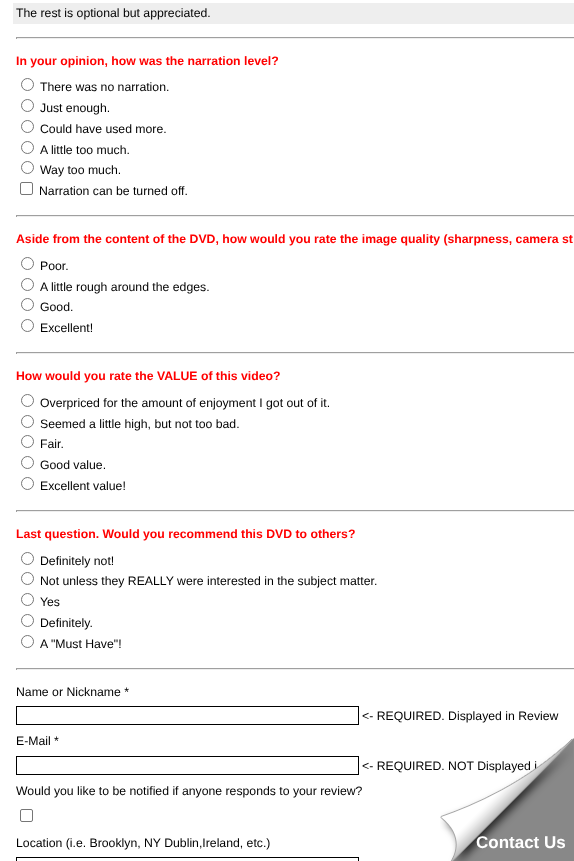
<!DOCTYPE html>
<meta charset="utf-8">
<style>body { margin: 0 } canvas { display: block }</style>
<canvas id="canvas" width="574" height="861"></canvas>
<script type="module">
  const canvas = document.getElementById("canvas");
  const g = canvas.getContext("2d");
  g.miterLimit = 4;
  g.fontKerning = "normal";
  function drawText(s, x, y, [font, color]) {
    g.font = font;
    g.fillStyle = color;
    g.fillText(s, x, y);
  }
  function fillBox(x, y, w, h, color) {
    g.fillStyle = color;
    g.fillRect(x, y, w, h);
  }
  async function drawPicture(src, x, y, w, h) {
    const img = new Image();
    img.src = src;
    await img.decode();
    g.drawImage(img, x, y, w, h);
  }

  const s1 = ["12.25px Liberation Sans", "#000000"];
  const s2 = ["bold 12.25px Liberation Sans", "#FF0000"];
  const s3 = ["bold 17px Liberation Sans", "#FFFFFF"];

  fillBox(0, 0, 574, 861, "#FFFFFF");
  fillBox(13, 3, 561, 21, "#EEEEEE");
  drawText("The rest is optional but appreciated.", 16, 17, s1);
  fillBox(16, 37, 558, 1, "#9F9F9F");
  fillBox(16, 38, 558, 1, "#EEEEEE");
  fillBox(16, 37, 1, 2, "#9F9F9F");
  drawText("In your opinion, how was the narration level?", 16, 65, s2);
  g.beginPath();
  g.arc(27.5, 84.5, 6, 0, Math.PI * 2);
  g.strokeStyle = "#767676";
  g.stroke();
  drawText("There was no narration.", 40, 91, s1);
  g.beginPath();
  g.arc(27.5, 105.5, 6, 0, Math.PI * 2);
  g.stroke();
  drawText("Just enough.", 40, 112, s1);
  g.beginPath();
  g.arc(27.5, 126.5, 6, 0, Math.PI * 2);
  g.stroke();
  drawText("Could have used more.", 40, 133, s1);
  g.beginPath();
  g.arc(27.5, 147.5, 6, 0, Math.PI * 2);
  g.stroke();
  drawText("A little too much.", 40, 154, s1);
  g.beginPath();
  g.arc(27.5, 167.5, 6, 0, Math.PI * 2);
  g.stroke();
  drawText("Way too much.", 40, 174, s1);
  g.beginPath();
  g.roundRect(20.5, 182.5, 12, 12, 1.5);
  g.stroke();
  drawText("Narration can be turned off.", 39, 195, s1);
  fillBox(16, 215, 558, 1, "#9F9F9F");
  fillBox(16, 216, 558, 1, "#EEEEEE");
  fillBox(16, 215, 1, 2, "#9F9F9F");
  drawText("Aside from the content of the DVD, how would you rate the image quality (sharpness, camera st", 16, 243, s2);
  g.beginPath();
  g.arc(27.5, 263.5, 6, 0, Math.PI * 2);
  g.stroke();
  drawText("Poor.", 40, 270, s1);
  g.beginPath();
  g.arc(27.5, 284.5, 6, 0, Math.PI * 2);
  g.stroke();
  drawText("A little rough around the edges.", 40, 291, s1);
  g.beginPath();
  g.arc(27.5, 304.5, 6, 0, Math.PI * 2);
  g.stroke();
  drawText("Good.", 40, 311, s1);
  g.beginPath();
  g.arc(27.5, 325.5, 6, 0, Math.PI * 2);
  g.stroke();
  drawText("Excellent!", 40, 332, s1);
  fillBox(16, 352, 558, 1, "#9F9F9F");
  fillBox(16, 353, 558, 1, "#EEEEEE");
  fillBox(16, 352, 1, 2, "#9F9F9F");
  drawText("How would you rate the VALUE of this video?", 16, 380, s2);
  g.beginPath();
  g.arc(27.5, 400.5, 6, 0, Math.PI * 2);
  g.stroke();
  drawText("Overpriced for the amount of enjoyment I got out of it.", 40, 407, s1);
  g.beginPath();
  g.arc(27.5, 421.5, 6, 0, Math.PI * 2);
  g.stroke();
  drawText("Seemed a little high, but not too bad.", 40, 428, s1);
  g.beginPath();
  g.arc(27.5, 441.5, 6, 0, Math.PI * 2);
  g.stroke();
  drawText("Fair.", 40, 448, s1);
  g.beginPath();
  g.arc(27.5, 462.5, 6, 0, Math.PI * 2);
  g.stroke();
  drawText("Good value.", 40, 469, s1);
  g.beginPath();
  g.arc(27.5, 483.5, 6, 0, Math.PI * 2);
  g.stroke();
  drawText("Excellent value!", 40, 490, s1);
  fillBox(16, 510, 558, 1, "#9F9F9F");
  fillBox(16, 511, 558, 1, "#EEEEEE");
  fillBox(16, 510, 1, 2, "#9F9F9F");
  drawText("Last question. Would you recommend this DVD to others?", 16, 538, s2);
  g.beginPath();
  g.arc(27.5, 558.5, 6, 0, Math.PI * 2);
  g.stroke();
  drawText("Definitely not!", 40, 565, s1);
  g.beginPath();
  g.arc(27.5, 578.5, 6, 0, Math.PI * 2);
  g.stroke();
  drawText("Not unless they REALLY were interested in the subject matter.", 40, 585, s1);
  g.beginPath();
  g.arc(27.5, 599.5, 6, 0, Math.PI * 2);
  g.stroke();
  drawText("Yes", 40, 606, s1);
  g.beginPath();
  g.arc(27.5, 620.5, 6, 0, Math.PI * 2);
  g.stroke();
  drawText("Definitely.", 40, 627, s1);
  g.beginPath();
  g.arc(27.5, 641.5, 6, 0, Math.PI * 2);
  g.stroke();
  drawText("A \"Must Have\"!", 40, 648, s1);
  fillBox(16, 668, 558, 1, "#9F9F9F");
  fillBox(16, 669, 558, 1, "#EEEEEE");
  fillBox(16, 668, 1, 2, "#9F9F9F");
  drawText("Name or Nickname *", 16, 696, s1);
  g.strokeStyle = "#000000";
  g.strokeRect(16.5, 706.5, 342, 18);
  drawText("<- REQUIRED. Displayed in Review", 362, 720, s1);
  drawText("E-Mail *", 16, 745, s1);
  g.strokeRect(16.5, 756.5, 342, 18);
  drawText("<- REQUIRED. NOT Displayed i", 362, 770, s1);
  drawText("Would you like to be notified if anyone responds to your review?", 16, 795, s1);
  g.beginPath();
  g.roundRect(20.5, 809.5, 12, 12, 1.5);
  g.strokeStyle = "#767676";
  g.stroke();
  drawText("Location (i.e. Brooklyn, NY Dublin,Ireland, etc.)", 16, 847, s1);
  g.strokeStyle = "#000000";
  g.strokeRect(16.5, 857.5, 342, 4);
  g.fillStyle = "#888888";
  g.beginPath();
  g.moveTo(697, 861);
  g.lineTo(451, 861);
  g.lineTo(574, 738);
  g.closePath();
  g.fill();
  await drawPicture("pic1.png", 440, 738, 133, 123);
  drawText("Contact Us", 476, 848, s3);
</script>
